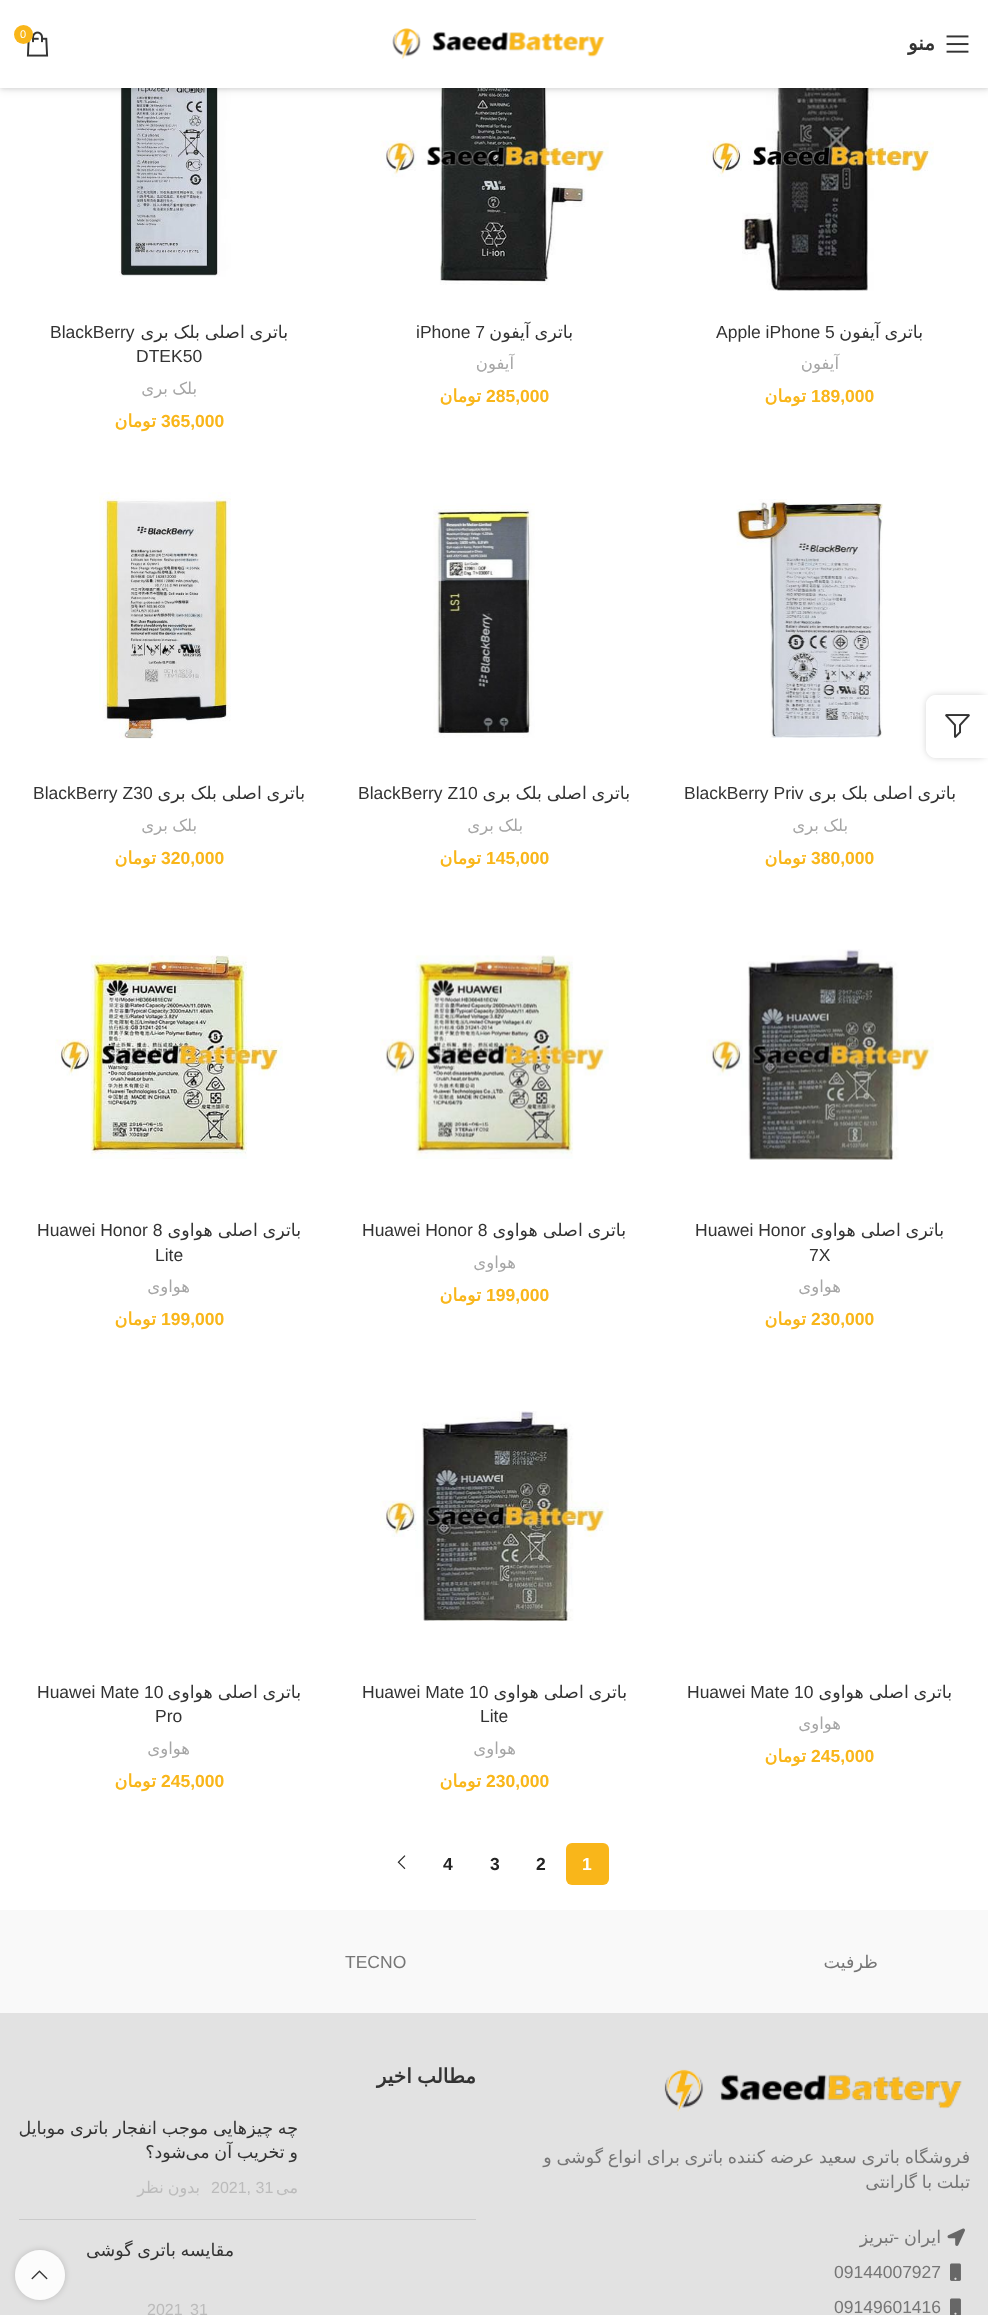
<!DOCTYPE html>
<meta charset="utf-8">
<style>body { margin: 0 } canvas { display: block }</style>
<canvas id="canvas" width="988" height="2315"></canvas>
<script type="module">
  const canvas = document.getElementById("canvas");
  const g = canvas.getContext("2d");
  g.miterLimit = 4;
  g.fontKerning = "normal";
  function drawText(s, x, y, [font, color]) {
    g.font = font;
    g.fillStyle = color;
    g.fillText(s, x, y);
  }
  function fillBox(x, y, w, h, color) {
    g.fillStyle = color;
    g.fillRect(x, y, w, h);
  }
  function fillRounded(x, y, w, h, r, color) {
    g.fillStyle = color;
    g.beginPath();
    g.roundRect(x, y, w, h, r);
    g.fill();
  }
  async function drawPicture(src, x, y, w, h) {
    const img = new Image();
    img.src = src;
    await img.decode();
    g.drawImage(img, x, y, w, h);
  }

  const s1 = ["11px Liberation Sans", "#FFFFFF"];
  const s2 = ["bold 20px DejaVu Sans", "#333333"];
  const s3 = ["17.5px DejaVu Sans", "#333333"];
  const s4 = ["17.5px Liberation Sans", "#333333"];
  const s5 = ["16.5px DejaVu Sans", "#A5A5A5"];
  const s6 = ["bold 17.5px Liberation Sans", "#F9B61A"];
  const s7 = ["bold 17.5px DejaVu Sans", "#F9B61A"];
  const s8 = ["bold 17.5px Liberation Sans", "#FFFFFF"];
  const s9 = ["bold 17.5px Liberation Sans", "#242424"];
  const s10 = ["17.5px DejaVu Sans", "#767676"];
  const s11 = ["17.5px Liberation Sans", "#767676"];
  const s12 = ["16px DejaVu Sans", "#BBBBBB"];
  const s13 = ["16px Liberation Sans", "#BBBBBB"];

  fillBox(0, 0, 988, 2315, "#FFFFFF");
  await drawPicture("pic4.png", 706, 88, 228, 203);
  await drawPicture("pic5.png", 380, 88, 229, 197);
  await drawPicture("pic6.png", 119, 88, 112, 189);
  g.fillStyle = "rgba(0, 0, 0, 0.1)";
  g.filter = "blur(2px)";
  g.beginPath();
  g.rect(0, 1, 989, 88);
  g.fill();
  g.filter = "none";
  g.filter = "blur(5px)";
  g.beginPath();
  g.rect(0, 1, 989, 88);
  g.fill();
  g.filter = "none";
  fillBox(0, 0, 988, 88, "#FFFFFF");
  await drawPicture("pic1.png", 392, 28, 213, 32);
  await drawPicture("pic2.png", 26, 31, 23, 26);
  g.fillStyle = "#F9B61A";
  g.beginPath();
  g.arc(23.5, 34.5, 9.5, 0, Math.PI * 2);
  g.fill();
  drawText("0", 20, 38, s1);
  await drawPicture("pic3.png", 946, 35, 23, 18);
  g.direction = "rtl";
  drawText("منو", 935, 50, s2);
  g.wordSpacing = "-0.75px";
  drawText("باتری آیفون", 923, 338, s3);
  g.wordSpacing = "0px";
  g.direction = "ltr";
  drawText("Apple iPhone 5", 716, 338, s4);
  g.direction = "rtl";
  drawText("آیفون", 839, 369, s5);
  g.direction = "ltr";
  drawText("189,000", 811, 402, s6);
  g.direction = "rtl";
  drawText("تومان", 806, 402, s7);
  g.wordSpacing = "-0.75px";
  drawText("باتری آیفون", 573, 338, s3);
  g.wordSpacing = "0px";
  g.direction = "ltr";
  drawText("iPhone 7", 416, 338, s4);
  g.direction = "rtl";
  drawText("آیفون", 514, 369, s5);
  g.direction = "ltr";
  drawText("285,000", 486, 402, s6);
  g.direction = "rtl";
  drawText("تومان", 481, 402, s7);
  g.wordSpacing = "-0.75px";
  drawText("باتری اصلی بلک بری", 288, 338, s3);
  g.wordSpacing = "0px";
  g.direction = "ltr";
  drawText("BlackBerry", 50, 338, s4);
  drawText("DTEK50", 136, 362, s4);
  g.wordSpacing = "-1px";
  g.direction = "rtl";
  drawText("بلک بری", 197, 394, s5);
  g.wordSpacing = "0px";
  g.direction = "ltr";
  drawText("365,000", 161, 427, s6);
  g.direction = "rtl";
  drawText("تومان", 156, 427, s7);
  await drawPicture("pic7.png", 736, 499, 147, 239);
  g.wordSpacing = "-0.75px";
  drawText("باتری اصلی بلک بری", 956, 799, s3);
  g.wordSpacing = "0px";
  g.direction = "ltr";
  drawText("BlackBerry Priv", 684, 799, s4);
  g.wordSpacing = "-1px";
  g.direction = "rtl";
  drawText("بلک بری", 848, 831, s5);
  g.wordSpacing = "0px";
  g.direction = "ltr";
  drawText("380,000", 811, 864, s6);
  g.direction = "rtl";
  drawText("تومان", 806, 864, s7);
  await drawPicture("pic8.png", 433, 503, 102, 235);
  g.wordSpacing = "-0.75px";
  drawText("باتری اصلی بلک بری", 630, 799, s3);
  g.wordSpacing = "0px";
  g.direction = "ltr";
  drawText("BlackBerry Z10", 358, 799, s4);
  g.wordSpacing = "-1px";
  g.direction = "rtl";
  drawText("بلک بری", 523, 831, s5);
  g.wordSpacing = "0px";
  g.direction = "ltr";
  drawText("145,000", 486, 864, s6);
  g.direction = "rtl";
  drawText("تومان", 481, 864, s7);
  await drawPicture("pic9.png", 99, 492, 132, 247);
  g.wordSpacing = "-0.75px";
  drawText("باتری اصلی بلک بری", 305, 799, s3);
  g.wordSpacing = "0px";
  g.direction = "ltr";
  drawText("BlackBerry Z30", 33, 799, s4);
  g.wordSpacing = "-1px";
  g.direction = "rtl";
  drawText("بلک بری", 197, 831, s5);
  g.wordSpacing = "0px";
  g.direction = "ltr";
  drawText("320,000", 161, 864, s6);
  g.direction = "rtl";
  drawText("تومان", 156, 864, s7);
  await drawPicture("pic10.png", 706, 949, 228, 211);
  g.wordSpacing = "-0.75px";
  drawText("باتری اصلی هواوی", 944, 1236, s3);
  g.wordSpacing = "0px";
  g.direction = "ltr";
  drawText("Huawei Honor", 695, 1236, s4);
  drawText("7X", 809, 1261, s4);
  g.direction = "rtl";
  drawText("هواوی", 841, 1292, s5);
  g.direction = "ltr";
  drawText("230,000", 811, 1325, s6);
  g.direction = "rtl";
  drawText("تومان", 806, 1325, s7);
  await drawPicture("pic11.png", 380, 955, 229, 204);
  g.wordSpacing = "-0.75px";
  drawText("باتری اصلی هواوی", 626, 1236, s3);
  g.wordSpacing = "0px";
  g.direction = "ltr";
  drawText("Huawei Honor 8", 362, 1236, s4);
  g.direction = "rtl";
  drawText("هواوی", 516, 1268, s5);
  g.direction = "ltr";
  drawText("199,000", 486, 1301, s6);
  g.direction = "rtl";
  drawText("تومان", 481, 1301, s7);
  await drawPicture("pic12.png", 55, 955, 228, 204);
  g.wordSpacing = "-0.75px";
  drawText("باتری اصلی هواوی", 301, 1236, s3);
  g.wordSpacing = "0px";
  g.direction = "ltr";
  drawText("Huawei Honor 8", 37, 1236, s4);
  drawText("Lite", 155, 1261, s4);
  g.direction = "rtl";
  drawText("هواوی", 190, 1292, s5);
  g.direction = "ltr";
  drawText("199,000", 161, 1325, s6);
  g.direction = "rtl";
  drawText("تومان", 156, 1325, s7);
  g.wordSpacing = "-0.75px";
  drawText("باتری اصلی هواوی", 952, 1698, s3);
  g.wordSpacing = "0px";
  g.direction = "ltr";
  drawText("Huawei Mate 10", 687, 1698, s4);
  g.direction = "rtl";
  drawText("هواوی", 841, 1729, s5);
  g.direction = "ltr";
  drawText("245,000", 811, 1762, s6);
  g.direction = "rtl";
  drawText("تومان", 806, 1762, s7);
  await drawPicture("pic13.png", 380, 1411, 229, 210);
  g.wordSpacing = "-0.75px";
  drawText("باتری اصلی هواوی", 627, 1698, s3);
  g.wordSpacing = "0px";
  g.direction = "ltr";
  drawText("Huawei Mate 10", 362, 1698, s4);
  drawText("Lite", 480, 1722, s4);
  g.direction = "rtl";
  drawText("هواوی", 516, 1754, s5);
  g.direction = "ltr";
  drawText("230,000", 486, 1787, s6);
  g.direction = "rtl";
  drawText("تومان", 481, 1787, s7);
  g.wordSpacing = "-0.75px";
  drawText("باتری اصلی هواوی", 301, 1698, s3);
  g.wordSpacing = "0px";
  g.direction = "ltr";
  drawText("Huawei Mate 10", 37, 1698, s4);
  drawText("Pro", 155, 1722, s4);
  g.direction = "rtl";
  drawText("هواوی", 190, 1754, s5);
  g.direction = "ltr";
  drawText("245,000", 161, 1787, s6);
  g.direction = "rtl";
  drawText("تومان", 156, 1787, s7);
  fillRounded(566, 1843, 43, 42, 6, "#F9B61A");
  g.direction = "ltr";
  drawText("1", 582, 1870, s8);
  drawText("2", 536, 1870, s9);
  drawText("3", 490, 1870, s9);
  drawText("4", 443, 1870, s9);
  await drawPicture("pic14.png", 397, 1855, 9, 15);
  fillBox(0, 1910, 988, 103, "#F9F9F9");
  g.direction = "rtl";
  drawText("ظرفیت", 878, 1968, s10);
  g.direction = "ltr";
  drawText("TECNO", 345, 1968, s11);
  fillBox(0, 2013, 988, 302, "#E2E2E2");
  await drawPicture("pic15.png", 664, 2069, 298, 43);
  g.wordSpacing = "-0.75px";
  g.direction = "rtl";
  drawText("فروشگاه باتری سعید عرضه کننده باتری برای انواع گوشی و", 970, 2163, s10);
  drawText("تبلت با گارانتی", 970, 2188, s10);
  await drawPicture("pic16.png", 947, 2228, 18, 18);
  g.wordSpacing = "0px";
  drawText("ایران", 941, 2243, s10);
  drawText("-", 899, 2243, s11);
  drawText("تبریز", 894, 2243, s10);
  await drawPicture("pic17.png", 950, 2263, 11, 18);
  g.direction = "ltr";
  drawText("09144007927", 834, 2278, s11);
  await drawPicture("pic18.png", 950, 2298, 11, 17);
  drawText("09149601416", 834, 2313, s11);
  g.wordSpacing = "-1px";
  g.direction = "rtl";
  drawText("مطالب اخیر", 476, 2083, s2);
  fillBox(19, 2219, 457, 1, "#CACACA");
  g.wordSpacing = "-0.75px";
  drawText("هایی موجب انفجار باتری موبایل", 247, 2134, s3);
  drawText("چه چیز", 298, 2134, s3);
  drawText("و تخریب آن می", 298, 2158, s3);
  g.wordSpacing = "0px";
  drawText("شود؟", 186, 2158, s3);
  drawText("می", 298, 2193, s12);
  g.direction = "ltr";
  drawText("2021, 31", 211, 2193, s13);
  g.wordSpacing = "-1px";
  g.direction = "rtl";
  drawText("بدون نظر", 200, 2193, s12);
  g.wordSpacing = "-0.75px";
  drawText("مقایسه باتری گوشی", 234, 2256, s3);
  g.wordSpacing = "0px";
  g.direction = "ltr";
  drawText("31", 190, 2315, s13);
  drawText("2021", 147, 2315, s13);
  g.save();
  g.beginPath();
  g.moveTo(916, 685);
  g.lineTo(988, 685);
  g.lineTo(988, 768);
  g.lineTo(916, 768);
  g.closePath();
  g.moveTo(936, 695);
  g.lineTo(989, 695);
  g.lineTo(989, 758);
  g.lineTo(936, 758);
  g.bezierCurveTo(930.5, 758, 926, 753.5, 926, 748);
  g.lineTo(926, 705);
  g.bezierCurveTo(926, 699.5, 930.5, 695, 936, 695);
  g.closePath();
  g.clip("evenodd");
  g.fillStyle = "rgba(0, 0, 0, 0.17)";
  g.filter = "blur(3px)";
  g.beginPath();
  g.roundRect(926, 695, 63, 63, 10);
  g.fill();
  g.filter = "none";
  g.restore();
  g.fillStyle = "rgba(255, 255, 255, 0.9)";
  g.beginPath();
  g.moveTo(936, 695);
  g.lineTo(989, 695);
  g.lineTo(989, 758);
  g.lineTo(936, 758);
  g.bezierCurveTo(930.5, 758, 926, 753.5, 926, 748);
  g.lineTo(926, 705);
  g.bezierCurveTo(926, 699.5, 930.5, 695, 936, 695);
  g.closePath();
  g.fill();
  await drawPicture("pic19.png", 945, 714, 25, 24);
  g.save();
  g.beginPath();
  g.moveTo(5, 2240);
  g.lineTo(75, 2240);
  g.lineTo(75, 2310);
  g.lineTo(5, 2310);
  g.closePath();
  g.moveTo(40, 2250);
  g.bezierCurveTo(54, 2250, 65, 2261, 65, 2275);
  g.bezierCurveTo(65, 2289, 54, 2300, 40, 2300);
  g.bezierCurveTo(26, 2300, 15, 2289, 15, 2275);
  g.bezierCurveTo(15, 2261, 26, 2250, 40, 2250);
  g.closePath();
  g.clip("evenodd");
  g.fillStyle = "rgba(0, 0, 0, 0.17)";
  g.filter = "blur(3px)";
  g.beginPath();
  g.roundRect(15, 2250, 50, 50, 25);
  g.fill();
  g.filter = "none";
  g.restore();
  g.beginPath();
  g.arc(40, 2275, 25, 0, Math.PI * 2);
  g.fill();
  await drawPicture("pic20.png", 31, 2270, 17, 10);
</script>
